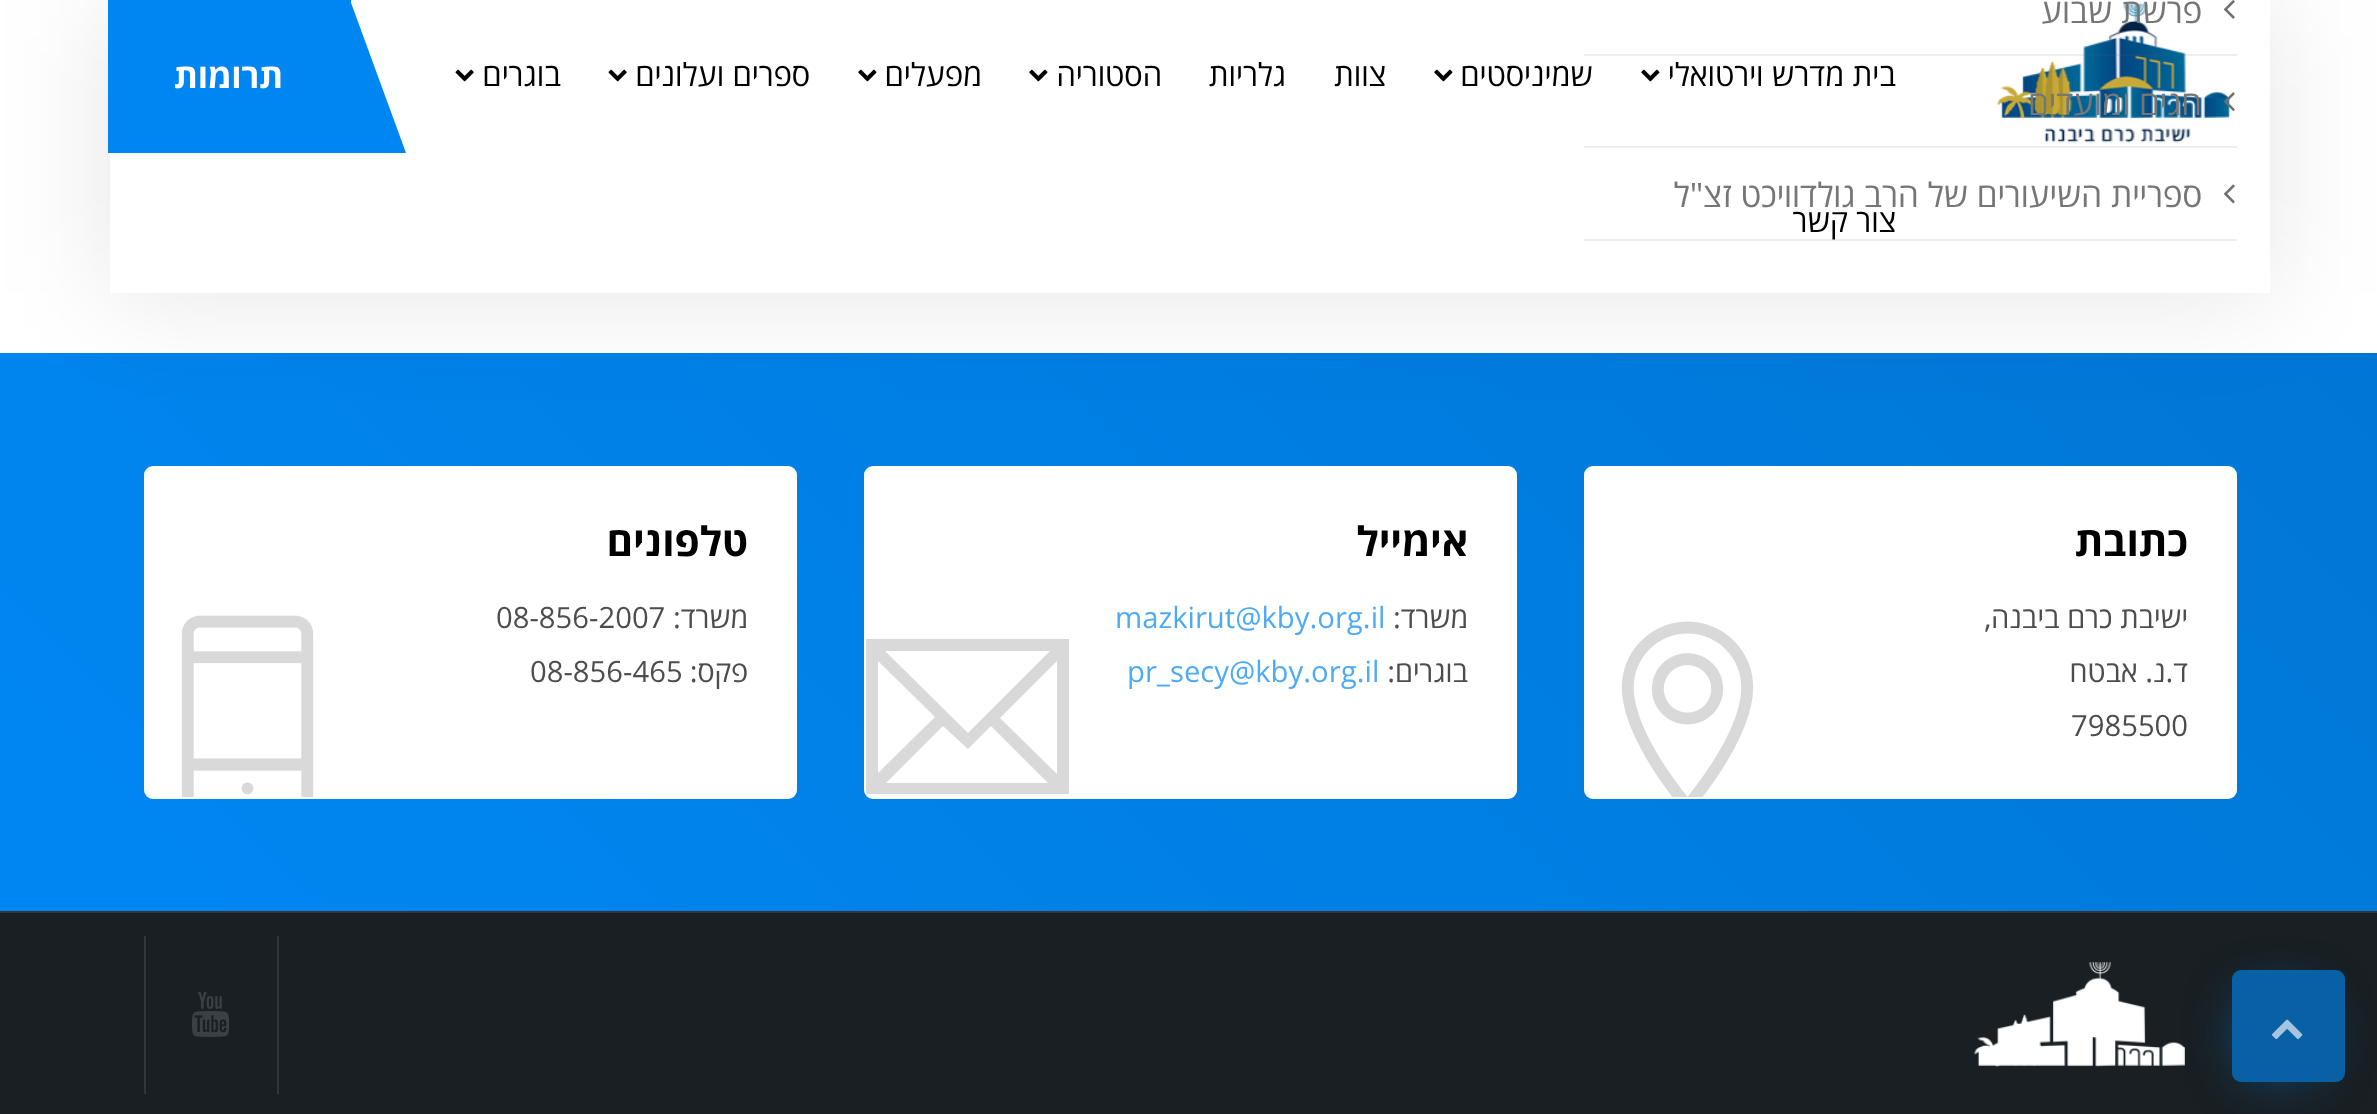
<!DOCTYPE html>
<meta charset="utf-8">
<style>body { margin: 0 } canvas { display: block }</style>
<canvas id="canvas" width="2377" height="1114"></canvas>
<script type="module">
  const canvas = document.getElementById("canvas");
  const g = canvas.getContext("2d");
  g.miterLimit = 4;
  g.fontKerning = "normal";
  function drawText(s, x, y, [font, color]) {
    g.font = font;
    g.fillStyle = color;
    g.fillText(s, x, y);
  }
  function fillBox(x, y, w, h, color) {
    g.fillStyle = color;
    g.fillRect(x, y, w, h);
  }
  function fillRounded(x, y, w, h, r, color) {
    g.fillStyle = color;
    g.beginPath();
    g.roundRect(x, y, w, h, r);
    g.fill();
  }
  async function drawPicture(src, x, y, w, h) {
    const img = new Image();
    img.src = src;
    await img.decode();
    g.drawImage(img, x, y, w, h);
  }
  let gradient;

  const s1 = ["33.75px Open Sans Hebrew", "#767676"];
  const s2 = ["31.5px Open Sans Hebrew", "#000000"];
  const s3 = ["bold 33.75px Open Sans Hebrew", "#FFFFFF"];
  const s4 = ["bold 40.5px Open Sans Hebrew", "#000000"];
  const s5 = ["29.25px Open Sans Hebrew", "#4D4D4D"];
  const s6 = ["29.25px Open Sans Hebrew", "#4DAAF5"];

  fillBox(0, 0, 2377, 1114, "#FFFFFF");
  gradient = g.createLinearGradient(455, 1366, 1923, -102);
  gradient.addColorStop(0.08, "#0086F1");
  gradient.addColorStop(1, "#0077D5");
  g.fillStyle = gradient;
  g.fillRect(0, 353, 2377, 558);
  g.fillStyle = "rgba(0, 0, 0, 0.1)";
  g.filter = "blur(56px)";
  g.beginPath();
  g.rect(110, 0, 2160, 293);
  g.fill();
  g.filter = "none";
  fillBox(110, 0, 2160, 293, "#FFFFFF");
  await drawPicture("pic4.png", 1996, 3, 234, 140);
  fillBox(1584, 54, 653, 2, "rgba(102, 102, 102, 0.11)");
  await drawPicture("pic1.png", 2223, 0, 12, 19);
  g.direction = "rtl";
  drawText("פרשת שבוע", 2202, 23, s1);
  fillBox(1584, 146, 653, 2, "#EEEEEE");
  await drawPicture("pic2.png", 2223, 92, 12, 19);
  drawText("חגים ומועדים", 2202, 115, s1);
  fillBox(1584, 239, 653, 2, "rgba(102, 102, 102, 0.11)");
  await drawPicture("pic3.png", 2223, 184, 12, 20);
  drawText("ספריית השיעורים של הרב גולדוויכט זצ\"ל", 2202, 207, s1);
  drawText("בית מדרש וירטואלי", 1896, 86, s2);
  await drawPicture("pic5.png", 1641, 69, 19, 13);
  drawText("שמיניסטים", 1593, 86, s2);
  await drawPicture("pic5.png", 1434, 69, 19, 13);
  drawText("צוות", 1386, 86, s2);
  drawText("גלריות", 1286, 86, s2);
  drawText("הסטוריה", 1162, 86, s2);
  await drawPicture("pic5.png", 1029, 69, 19, 13);
  drawText("מפעלים", 982, 86, s2);
  await drawPicture("pic5.png", 858, 69, 19, 13);
  drawText("ספרים ועלונים", 810, 86, s2);
  await drawPicture("pic6.png", 608, 69, 19, 13);
  drawText("בוגרים", 561, 86, s2);
  await drawPicture("pic6.png", 455, 69, 19, 13);
  drawText("צור קשר", 1896, 232, s2);
  fillBox(108, 0, 243, 153, "#0086F0");
  drawText("תרומות", 283, 88, s3);
  g.fillStyle = "#0086F0";
  g.beginPath();
  g.moveTo(260, 0);
  g.lineTo(350, 0);
  g.lineTo(406, 153);
  g.lineTo(316, 153);
  g.closePath();
  g.fill();
  fillRounded(1584, 466, 653, 333, 9, "#FFFFFF");
  g.beginPath();
  g.roundRect(1585, 467, 651, 331, 8);
  g.strokeStyle = "rgba(255, 255, 255, 0.15)";
  g.lineWidth = 2;
  g.stroke();
  drawText("כתובת", 2188, 556, s4);
  await drawPicture("pic7.png", 1621, 621, 133, 176);
  drawText("ישיבת כרם ביבנה,", 2188, 628, s5);
  drawText("ד.נ. אבטח", 2188, 682, s5);
  g.direction = "ltr";
  drawText("7985500", 2071, 736, s5);
  fillRounded(864, 466, 653, 333, 9, "#FFFFFF");
  g.beginPath();
  g.roundRect(865, 467, 651, 331, 8);
  g.stroke();
  g.direction = "rtl";
  drawText("אימייל", 1468, 556, s4);
  g.fillStyle = "#D9D9D9";
  g.beginPath();
  g.moveTo(866, 639);
  g.lineTo(866, 790);
  g.bezierCurveTo(866, 791, 866, 793, 867, 794);
  g.lineTo(1069, 794);
  g.lineTo(1069, 639);
  g.closePath();
  g.moveTo(968, 733);
  g.lineTo(1050, 651);
  g.lineTo(885, 651);
  g.closePath();
  g.moveTo(935, 717);
  g.lineTo(878, 661);
  g.lineTo(878, 773);
  g.closePath();
  g.moveTo(1000, 718);
  g.lineTo(1057, 774);
  g.lineTo(1057, 661);
  g.closePath();
  g.moveTo(943, 726);
  g.lineTo(886, 783);
  g.lineTo(1048, 783);
  g.lineTo(991, 726);
  g.lineTo(968, 749);
  g.closePath();
  g.fill("evenodd");
  drawText("משרד:", 1468, 628, s5);
  g.direction = "ltr";
  drawText("mazkirut@kby.org.il", 1115, 628, s6);
  g.direction = "rtl";
  drawText("בוגרים:", 1468, 682, s5);
  g.direction = "ltr";
  drawText("pr_secy@kby.org.il", 1127, 682, s6);
  fillRounded(144, 466, 653, 333, 9, "#FFFFFF");
  g.beginPath();
  g.roundRect(145, 467, 651, 331, 8);
  g.stroke();
  g.direction = "rtl";
  drawText("טלפונים", 748, 556, s4);
  await drawPicture("pic8.png", 181, 615, 133, 182);
  drawText("משרד:", 748, 628, s5);
  g.direction = "ltr";
  drawText("08-856-2007", 496, 628, s5);
  g.direction = "rtl";
  drawText("פקס:", 748, 682, s5);
  g.direction = "ltr";
  drawText("08-856-465", 530, 682, s5);
  fillBox(0, 913, 2377, 201, "#191F23");
  fillBox(0, 911, 2377, 2, "#303639");
  await drawPicture("pic9.png", 1974, 962, 211, 105);
  fillBox(277, 936, 2, 158, "#303639");
  fillBox(144, 936, 2, 158, "#303639");
  await drawPicture("pic10.png", 192, 992, 38, 45);
  g.fillStyle = "#0961A5";
  g.filter = "blur(27px)";
  g.beginPath();
  g.rect(2246, 1001, 67, 68);
  g.fill();
  g.filter = "none";
  fillRounded(2232, 970, 113, 112, 9, "#0961A5");
  await drawPicture("pic11.png", 2272, 1019, 31, 21);
</script>
